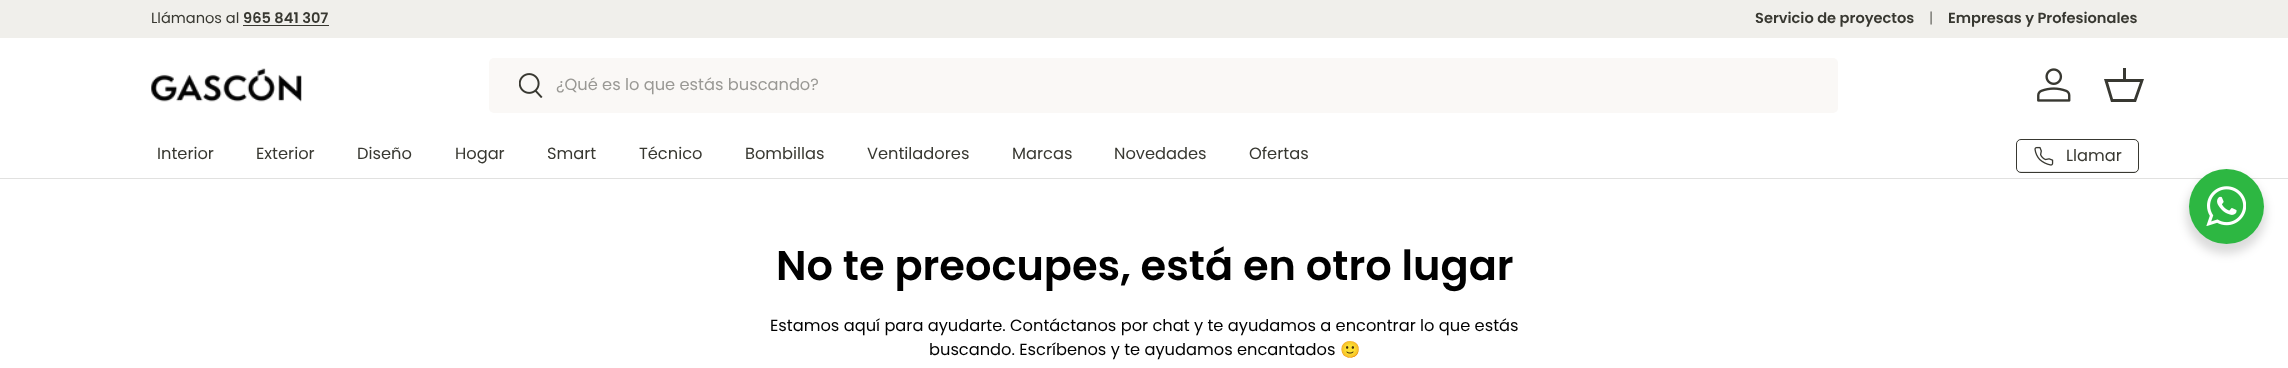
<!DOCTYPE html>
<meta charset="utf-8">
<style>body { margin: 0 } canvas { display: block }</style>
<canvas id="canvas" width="2288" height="368"></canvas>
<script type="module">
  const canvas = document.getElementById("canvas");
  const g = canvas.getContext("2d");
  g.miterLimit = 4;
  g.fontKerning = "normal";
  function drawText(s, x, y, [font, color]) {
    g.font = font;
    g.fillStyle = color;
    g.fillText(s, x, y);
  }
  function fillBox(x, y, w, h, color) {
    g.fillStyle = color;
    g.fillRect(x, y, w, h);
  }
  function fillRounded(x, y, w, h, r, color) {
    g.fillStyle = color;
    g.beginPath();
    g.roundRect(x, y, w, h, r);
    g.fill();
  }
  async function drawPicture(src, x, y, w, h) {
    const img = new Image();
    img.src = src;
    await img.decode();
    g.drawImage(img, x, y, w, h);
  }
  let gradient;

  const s1 = ["14.6px Poppins", "#383831"];
  const s2 = ["600 14.6px Poppins", "#383831"];
  const s3 = ["14.6px Poppins", "#6F6F69"];
  const s4 = ["16.25px Poppins", "#999894"];
  const s5 = ["16.25px Poppins", "#383831"];
  const s6 = ["600 41.5px Poppins", "#000000"];
  const s7 = ["16.25px Poppins", "#000000"];
  const s8 = ["16.25px Noto Color Emoji", "#000000"];

  fillBox(0, 0, 2288, 368, "#FFFFFF");
  fillBox(0, 0, 2288, 38, "#F0EFEB");
  drawText("Llámanos al", 151, 23, s1);
  drawText("965 841 307", 243, 23, s2);
  fillBox(243, 25, 86, 1, "#383831");
  drawText("Servicio de proyectos", 1755, 23, s2);
  drawText("|", 1929, 23, s3);
  drawText("Empresas y Profesionales", 1948, 23, s2);
  fillBox(0, 178, 2288, 1, "#E1E1E0");
  await drawPicture("pic1.png", 151, 68, 151, 34);
  fillRounded(489, 58, 1349, 55, 5, "#FAF8F6");
  await drawPicture("pic2.png", 519, 73, 24, 25);
  drawText("¿Qué es lo que estás buscando?", 556, 90, s4);
  await drawPicture("pic3.png", 2037, 68, 34, 34);
  g.fillStyle = "#383831";
  g.beginPath();
  g.moveTo(2123, 79);
  g.lineTo(2123, 68);
  g.lineTo(2126, 68);
  g.lineTo(2126, 79);
  g.lineTo(2144, 79);
  g.lineTo(2136, 102);
  g.lineTo(2111, 102);
  g.lineTo(2104, 79);
  g.closePath();
  g.moveTo(2108, 82);
  g.lineTo(2113, 99);
  g.lineTo(2134, 99);
  g.lineTo(2140, 82);
  g.closePath();
  g.fill();
  drawText("Interior", 157, 159, s5);
  drawText("Exterior", 256, 159, s5);
  drawText("Diseño", 357, 159, s5);
  drawText("Hogar", 455, 159, s5);
  drawText("Smart", 547, 159, s5);
  drawText("Técnico", 639, 159, s5);
  drawText("Bombillas", 745, 159, s5);
  drawText("Ventiladores", 867, 159, s5);
  drawText("Marcas", 1012, 159, s5);
  drawText("Novedades", 1114, 159, s5);
  drawText("Ofertas", 1249, 159, s5);
  fillRounded(2016, 139, 123, 34, 5, "#E9E9E8");
  g.save();
  g.beginPath();
  g.roundRect(2016, 139, 123, 34, 5);
  g.clip();
  gradient = g.createLinearGradient(1784, 112, 2131, 199);
  gradient.addColorStop(0.6, "#E9E9E8");
  gradient.addColorStop(0.6, "#FFFFFF");
  gradient.addColorStop(1, "#FFFFFF");
  g.fillStyle = gradient;
  g.fillRect(2016, 140, 122, 31);
  g.restore();
  g.beginPath();
  g.roundRect(2016.5, 139.5, 122, 33, 4.5);
  g.strokeStyle = "#383831";
  g.stroke();
  await drawPicture("pic4.png", 2034, 146, 20, 20);
  drawText("Llamar", 2066, 161, s5);
  g.fillStyle = "rgba(0, 0, 0, 0.14)";
  g.filter = "blur(5px)";
  g.beginPath();
  g.roundRect(2186, 174, 80, 80, 40);
  g.fill();
  g.filter = "none";
  g.fillStyle = "#2DB742";
  g.beginPath();
  g.arc(2226.5, 206.5, 37.5, 0, Math.PI * 2);
  g.fill();
  await drawPicture("pic5.png", 2206, 186, 40, 40);
  drawText("No te preocupes, está en otro lugar", 776, 280, s6);
  drawText("Estamos aquí para ayudarte. Contáctanos por chat y te ayudamos a encontrar lo que estás", 770, 331, s7);
  drawText("buscando. Escríbenos y te ayudamos encantados", 929, 355, s7);
  drawText("🙂", 1340, 355, s8);
</script>
